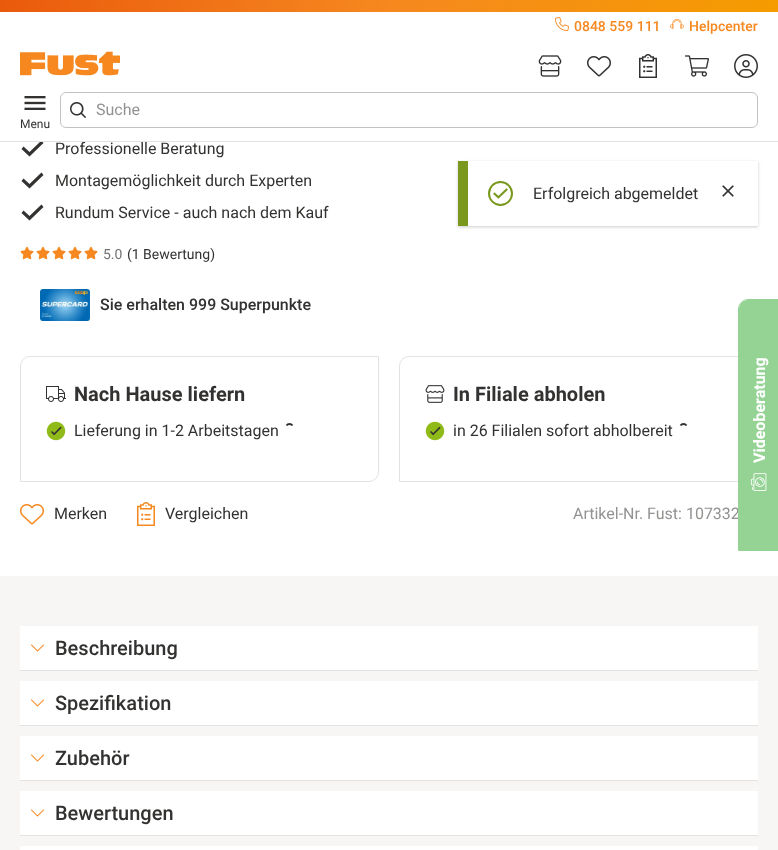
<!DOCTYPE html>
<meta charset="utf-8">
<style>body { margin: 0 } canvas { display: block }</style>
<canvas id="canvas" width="778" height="850"></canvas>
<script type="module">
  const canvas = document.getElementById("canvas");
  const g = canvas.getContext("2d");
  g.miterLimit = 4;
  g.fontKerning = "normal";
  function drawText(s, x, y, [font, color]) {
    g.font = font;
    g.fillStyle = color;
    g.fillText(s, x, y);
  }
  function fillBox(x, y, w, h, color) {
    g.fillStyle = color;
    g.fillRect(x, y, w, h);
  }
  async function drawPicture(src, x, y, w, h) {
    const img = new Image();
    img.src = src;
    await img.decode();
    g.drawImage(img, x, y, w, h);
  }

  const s1 = ["500 14px Roboto", "#F6881F"];
  const s2 = ["16px Roboto", "#939291"];
  const s3 = ["12px Roboto", "#333231"];
  const s4 = ["16px Roboto", "#333231"];
  const s5 = ["14px Roboto", "#737271"];
  const s6 = ["14px Roboto", "#333231"];
  const s7 = ["500 16px Roboto", "#333231"];
  const s8 = ["bold 20px Roboto", "#333231"];
  const s9 = ["500 20px Roboto", "#333231"];

  fillBox(0, 0, 778, 850, "#FFFFFF");
  g.fillStyle = "#333231";
  g.beginPath();
  g.moveTo(43.5, 143);
  g.lineTo(29.5, 156.5);
  g.lineTo(21.5, 149);
  g.lineTo(23.5, 146.5);
  g.lineTo(29.5, 152);
  g.lineTo(41.5, 140.5);
  g.closePath();
  g.moveTo(43.5, 175);
  g.lineTo(29.5, 188.5);
  g.lineTo(21.5, 181);
  g.lineTo(23.5, 178.5);
  g.lineTo(29.5, 184);
  g.lineTo(41.5, 172.5);
  g.closePath();
  g.fill();
  fillBox(41, 140, 1, 1, "#FFFFFF");
  await drawPicture("pic1.png", 0, 0, 778, 12);
  await drawPicture("pic2.png", 555, 17, 14, 14);
  drawText("0848 559 111", 574, 31, s1);
  await drawPicture("pic3.png", 670, 19, 14, 10);
  drawText("Helpcenter", 689, 31, s1);
  await drawPicture("pic4.png", 20, 51, 100, 25);
  g.beginPath();
  g.roundRect(60.5, 92.5, 697, 35, 5.5);
  g.strokeStyle = "#C3C2C1";
  g.stroke();
  await drawPicture("pic5.png", 70, 102, 16, 16);
  drawText("Suche", 96, 115, s2);
  await drawPicture("pic6.png", 24, 96, 22, 14);
  drawText("Menu", 20, 128, s3);
  await drawPicture("pic7.png", 538, 55, 24, 22);
  await drawPicture("pic8.png", 587, 56, 24, 21);
  await drawPicture("pic9.png", 639, 54, 18, 24);
  await drawPicture("pic10.png", 685, 55, 24, 22);
  await drawPicture("pic11.png", 734, 54, 24, 24);
  g.save();
  g.beginPath();
  g.moveTo(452, 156);
  g.lineTo(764, 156);
  g.lineTo(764, 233);
  g.lineTo(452, 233);
  g.closePath();
  g.moveTo(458, 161);
  g.lineTo(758, 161);
  g.lineTo(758, 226);
  g.lineTo(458, 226);
  g.closePath();
  g.clip("evenodd");
  g.fillStyle = "rgba(0, 0, 0, 0.2)";
  g.filter = "blur(1.5px)";
  g.beginPath();
  g.rect(458, 162, 300, 65);
  g.fill();
  g.filter = "none";
  g.restore();
  fillBox(458, 161, 10, 65, "#79981D");
  g.beginPath();
  g.arc(500.5, 193.5, 11.5, 0, Math.PI * 2);
  g.strokeStyle = "#79981D";
  g.lineWidth = 2;
  g.stroke();
  await drawPicture("pic12.png", 493, 188, 15, 11);
  drawText("Erfolgreich abgemeldet", 533, 199, s4);
  await drawPicture("pic13.png", 722, 185, 12, 12);
  drawText("Professionelle Beratung", 55, 154, s4);
  fillBox(0, 141, 778, 1, "#E3E2E1");
  drawText("Montagemöglichkeit durch Experten", 55, 186, s4);
  g.beginPath();
  g.moveTo(43.5, 207);
  g.lineTo(29.5, 220.5);
  g.lineTo(21.5, 213);
  g.lineTo(23.5, 210.5);
  g.lineTo(29.5, 216);
  g.lineTo(41.5, 204.5);
  g.closePath();
  g.fill();
  drawText("Rundum Service - auch nach dem Kauf", 55, 218, s4);
  await drawPicture("pic15.png", 20, 247, 14, 13);
  await drawPicture("pic14.png", 20, 246, 14, 14);
  await drawPicture("pic15.png", 36, 247, 14, 13);
  await drawPicture("pic14.png", 36, 246, 14, 14);
  await drawPicture("pic15.png", 52, 247, 14, 13);
  await drawPicture("pic14.png", 52, 246, 14, 14);
  await drawPicture("pic15.png", 68, 247, 14, 13);
  await drawPicture("pic14.png", 68, 246, 14, 14);
  await drawPicture("pic15.png", 84, 247, 14, 13);
  await drawPicture("pic14.png", 84, 246, 14, 14);
  drawText("5.0", 103, 259, s5);
  drawText("(1 Bewertung)", 127, 259, s6);
  await drawPicture("pic16.png", 40, 289, 50, 32);
  drawText("Sie erhalten 999 Superpunkte", 100, 310, s7);
  g.beginPath();
  g.roundRect(20.5, 356.5, 358, 125, [9.5, 0, 9.5, 0]);
  g.strokeStyle = "#E3E2E1";
  g.lineWidth = 1;
  g.stroke();
  await drawPicture("pic17.png", 46, 386, 20, 16);
  drawText("Nach Hause liefern", 74, 401, s8);
  await drawPicture("pic18.png", 46, 421, 20, 20);
  drawText("Lieferung in 1-2 Arbeitstagen", 74, 436, s4);
  g.beginPath();
  g.moveTo(286.5, 425.5);
  g.bezierCurveTo(288, 423.5, 291, 423.5, 292.5, 425.5);
  g.moveTo(286.5, 425.5);
  g.bezierCurveTo(288, 423.5, 291, 423.5, 292.5, 425.5);
  g.moveTo(286.5, 425.5);
  g.bezierCurveTo(288, 423.5, 291, 423.5, 292.5, 425.5);
  g.moveTo(286.5, 425.5);
  g.bezierCurveTo(288, 423.5, 291, 423.5, 292.5, 425.5);
  g.strokeStyle = "#333231";
  g.lineWidth = 2;
  g.stroke();
  g.beginPath();
  g.roundRect(399.5, 356.5, 358, 125, [9.5, 0, 9.5, 0]);
  g.strokeStyle = "#E3E2E1";
  g.lineWidth = 1;
  g.stroke();
  await drawPicture("pic19.png", 425, 385, 20, 18);
  drawText("In Filiale abholen", 453, 401, s8);
  await drawPicture("pic18.png", 425, 421, 20, 20);
  drawText("in 26 Filialen sofort abholbereit", 453, 436, s4);
  g.beginPath();
  g.moveTo(680.5, 425.5);
  g.bezierCurveTo(682, 423.5, 685, 423.5, 686.5, 425.5);
  g.moveTo(680.5, 425.5);
  g.bezierCurveTo(682, 423.5, 685, 423.5, 686.5, 425.5);
  g.moveTo(680.5, 425.5);
  g.bezierCurveTo(682, 423.5, 685, 423.5, 686.5, 425.5);
  g.moveTo(680.5, 425.5);
  g.bezierCurveTo(682, 423.5, 685, 423.5, 686.5, 425.5);
  g.strokeStyle = "#333231";
  g.lineWidth = 2;
  g.stroke();
  await drawPicture("pic20.png", 20, 504, 24, 21);
  drawText("Merken", 54, 519, s4);
  await drawPicture("pic21.png", 137, 502, 18, 24);
  drawText("Vergleichen", 165, 519, s4);
  drawText("Artikel-Nr. Fust: 107332", 573, 519, s2);
  fillBox(0, 576, 778, 274, "#F7F6F5");
  fillBox(20, 626, 738, 44, "#FFFFFF");
  fillBox(20, 670, 738, 1, "#E3E2E1");
  await drawPicture("pic22.png", 31, 644, 13, 8);
  drawText("Beschreibung", 55, 655, s9);
  fillBox(20, 681, 738, 44, "#FFFFFF");
  fillBox(20, 725, 738, 1, "#E3E2E1");
  await drawPicture("pic22.png", 31, 699, 13, 8);
  drawText("Spezifikation", 55, 710, s9);
  fillBox(20, 736, 738, 44, "#FFFFFF");
  fillBox(20, 780, 738, 1, "#E3E2E1");
  await drawPicture("pic22.png", 31, 754, 13, 8);
  drawText("Zubehör", 55, 765, s9);
  fillBox(20, 791, 738, 44, "#FFFFFF");
  fillBox(20, 835, 738, 1, "#E3E2E1");
  await drawPicture("pic22.png", 31, 809, 13, 8);
  drawText("Bewertungen", 55, 820, s9);
  fillBox(20, 846, 738, 4, "#FFFFFF");
  g.beginPath();
  g.moveTo(748, 299.5);
  g.lineTo(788.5, 299.5);
  g.lineTo(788.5, 541);
  g.bezierCurveTo(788.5, 546, 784, 550.5, 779, 550.5);
  g.lineTo(738.5, 550.5);
  g.lineTo(738.5, 309);
  g.bezierCurveTo(738.5, 304, 743, 299.5, 748, 299.5);
  g.closePath();
  g.strokeStyle = "#95D395";
  g.lineWidth = 1;
  g.stroke();
  g.fillStyle = "#95D395";
  g.beginPath();
  g.moveTo(748, 300);
  g.lineTo(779, 300);
  g.lineTo(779, 550);
  g.lineTo(739, 550);
  g.lineTo(739, 309);
  g.bezierCurveTo(739, 304, 743, 300, 748, 300);
  g.closePath();
  g.fill();
  g.font = "bold 16px Roboto";
  g.fillStyle = "#FFFFFF";
  g.save();
  g.translate(765, 463);
  g.rotate(-90 * Math.PI / 180);
  g.fillText("Videoberatung", 0, 0);
  g.restore();
  await drawPicture("pic23.png", 750, 473, 17, 18);
</script>
